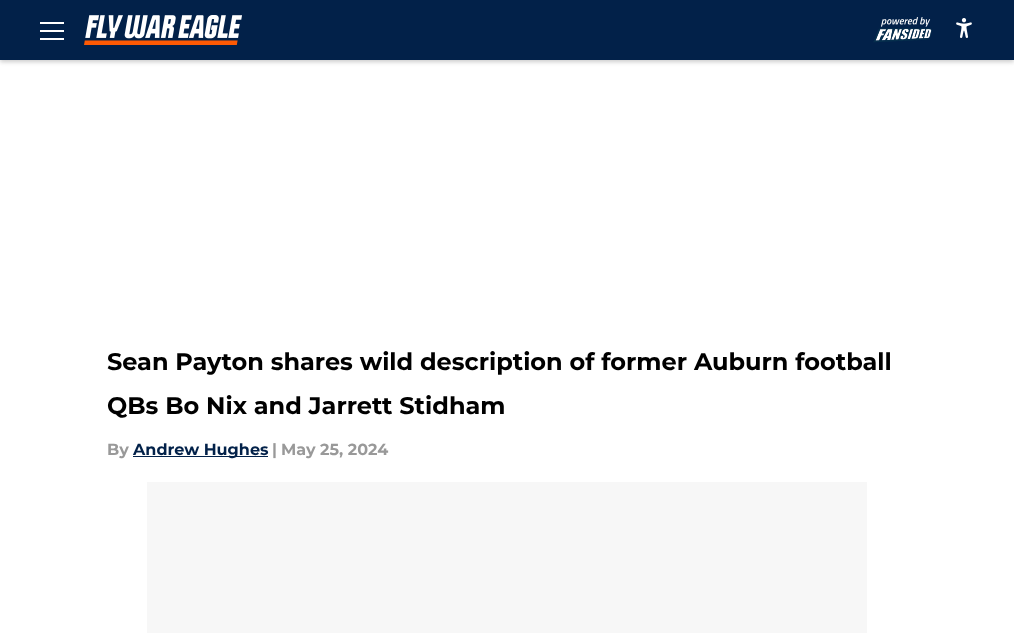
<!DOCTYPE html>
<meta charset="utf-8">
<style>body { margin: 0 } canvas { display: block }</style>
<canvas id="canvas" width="1014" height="633"></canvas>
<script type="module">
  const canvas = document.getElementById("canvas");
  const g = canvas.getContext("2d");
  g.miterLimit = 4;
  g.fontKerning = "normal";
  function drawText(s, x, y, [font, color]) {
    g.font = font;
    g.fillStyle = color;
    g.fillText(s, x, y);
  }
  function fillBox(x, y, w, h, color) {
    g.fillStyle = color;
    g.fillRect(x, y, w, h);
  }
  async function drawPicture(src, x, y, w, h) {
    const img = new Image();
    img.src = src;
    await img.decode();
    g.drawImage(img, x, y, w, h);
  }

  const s1 = ["100 24px Montserrat", "#000000"];
  const s2 = ["100 16px Montserrat", "#999999"];
  const s3 = ["100 16px Montserrat", "#022149"];

  fillBox(0, 0, 1014, 633, "#FFFFFF");
  g.fillStyle = "rgba(0, 0, 0, 0.2)";
  g.filter = "blur(2px)";
  g.beginPath();
  g.rect(0, 2, 1014, 60);
  g.fill();
  g.filter = "none";
  fillBox(0, 0, 1014, 60, "#022149");
  fillBox(40, 22, 24, 2, "#FFFFFF");
  fillBox(40, 30, 24, 2, "#FFFFFF");
  fillBox(40, 38, 24, 2, "#FFFFFF");
  await drawPicture("pic1.png", 84, 15, 158, 30);
  await drawPicture("pic2.png", 873, 17, 59, 26);
  await drawPicture("pic3.png", 956, 18, 16, 20);
  drawText("Sean Payton shares wild description of former Auburn football", 107, 370, s1);
  drawText("QBs Bo Nix and Jarrett Stidham", 107, 414, s1);
  drawText("By", 107, 455, s2);
  fillBox(133, 456, 135, 1, "#022149");
  drawText("Andrew Hughes", 133, 455, s3);
  drawText("|", 272, 455, s2);
  drawText("May 25, 2024", 281, 455, s2);
  fillBox(147, 482, 720, 151, "#F7F7F7");
</script>
